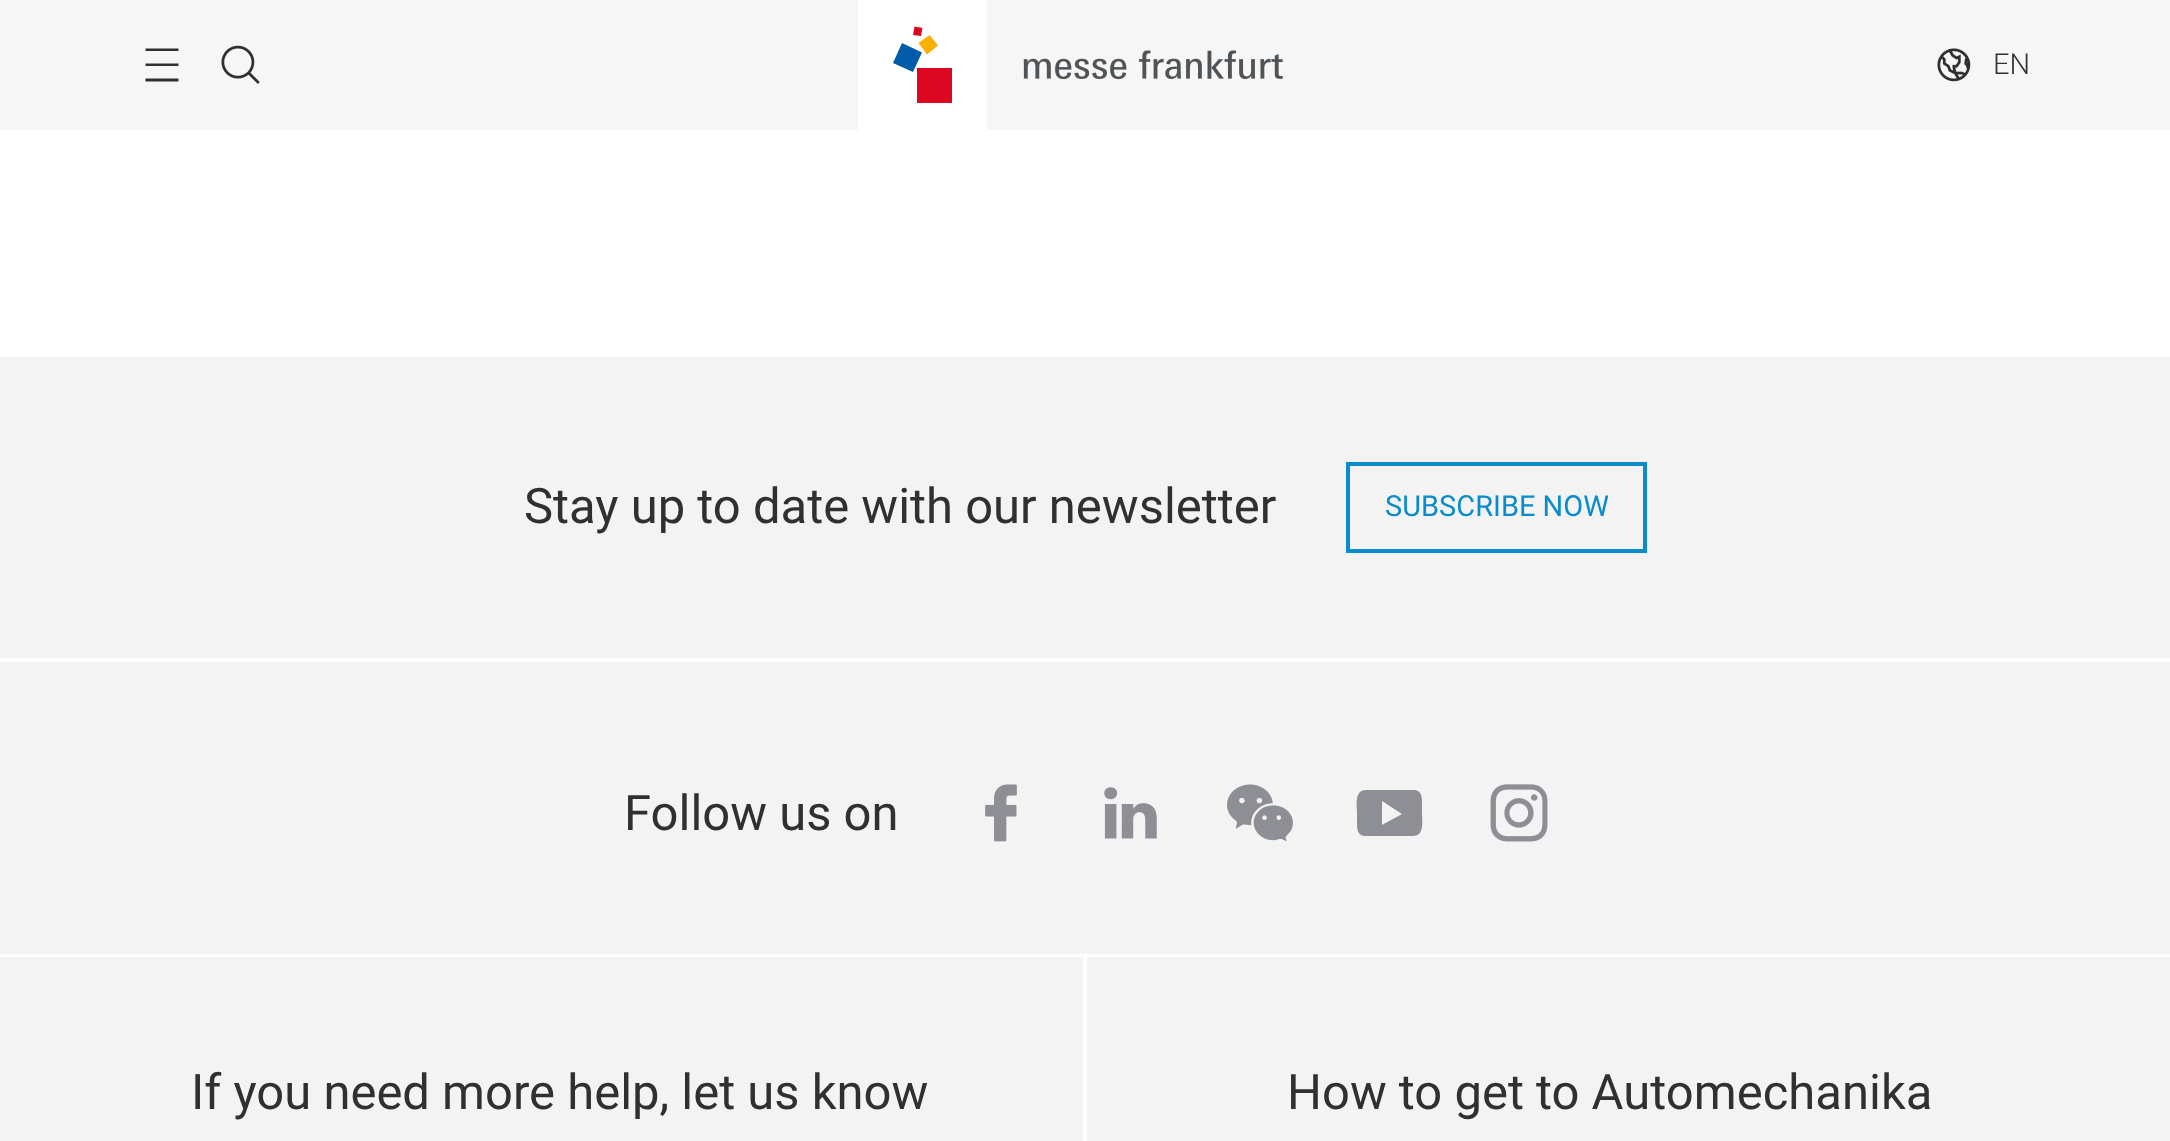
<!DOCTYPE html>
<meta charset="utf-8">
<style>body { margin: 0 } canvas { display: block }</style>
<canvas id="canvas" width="2170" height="1141"></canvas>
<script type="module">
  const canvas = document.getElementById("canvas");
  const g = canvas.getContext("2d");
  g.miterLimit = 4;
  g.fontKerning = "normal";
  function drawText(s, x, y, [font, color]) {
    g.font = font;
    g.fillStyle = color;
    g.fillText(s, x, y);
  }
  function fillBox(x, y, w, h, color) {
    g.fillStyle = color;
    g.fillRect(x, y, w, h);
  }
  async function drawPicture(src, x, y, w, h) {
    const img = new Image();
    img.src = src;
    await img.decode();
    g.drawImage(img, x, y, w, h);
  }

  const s1 = ["300 29px Roboto", "#303030"];
  const s2 = ["49px Roboto", "#303030"];
  const s3 = ["29px Roboto", "#098BCC"];

  fillBox(0, 0, 2170, 1141, "#FFFFFF");
  fillBox(0, 0, 2170, 130, "#F6F6F6");
  g.fillStyle = "#303030";
  g.beginPath();
  g.moveTo(178.5, 63.5);
  g.lineTo(145.5, 63.5);
  g.lineTo(145.5, 66);
  g.lineTo(178.5, 66);
  g.closePath();
  g.moveTo(178.5, 78.5);
  g.lineTo(145.5, 78.5);
  g.lineTo(145.5, 81.5);
  g.lineTo(178.5, 81.5);
  g.closePath();
  g.moveTo(178.5, 48.5);
  g.lineTo(145.5, 48.5);
  g.lineTo(145.5, 51);
  g.lineTo(178.5, 51);
  g.closePath();
  g.fill();
  await drawPicture("pic1.png", 221, 45, 39, 39);
  fillBox(858, 0, 129, 130, "#FFFFFF");
  fillBox(917, 68, 35, 35, "#DB0720");
  g.fillStyle = "#005CA9";
  g.beginPath();
  g.moveTo(913, 72);
  g.lineTo(893, 63);
  g.lineTo(902, 43);
  g.lineTo(922, 52.5);
  g.closePath();
  g.fill();
  g.fillStyle = "#F9B000";
  g.beginPath();
  g.moveTo(927, 54.5);
  g.lineTo(918.5, 43);
  g.lineTo(929.5, 35);
  g.lineTo(938, 45.5);
  g.closePath();
  g.fill();
  g.fillStyle = "#DB0720";
  g.beginPath();
  g.moveTo(921, 36);
  g.lineTo(913, 35);
  g.lineTo(914.5, 26.5);
  g.lineTo(922.5, 28);
  g.closePath();
  g.fill();
  await drawPicture("pic2.png", 1023, 50, 260, 30);
  await drawPicture("pic3.png", 1937, 48, 34, 34);
  drawText("EN", 1993, 74, s1);
  fillBox(0, 357, 2170, 301, "#F3F3F3");
  drawText("Stay up to date with our newsletter", 524, 523, s2);
  g.strokeStyle = "#098BCC";
  g.lineWidth = 4;
  g.strokeRect(1348, 464, 297, 87);
  drawText("SUBSCRIBE NOW", 1385, 516, s3);
  fillBox(0, 662, 2170, 292, "#F3F3F3");
  drawText("Follow us on", 624, 830, s2);
  await drawPicture("pic4.png", 985, 784, 32, 58);
  await drawPicture("pic5.png", 1104, 787, 53, 52);
  await drawPicture("pic6.png", 1227, 784, 66, 58);
  g.fillStyle = "#8D8F95";
  g.beginPath();
  g.moveTo(1366, 790);
  g.lineTo(1415, 790);
  g.bezierCurveTo(1422, 791, 1422, 798, 1422, 803);
  g.lineTo(1422, 813);
  g.bezierCurveTo(1422, 820, 1425, 836, 1413, 836);
  g.lineTo(1364, 836);
  g.bezierCurveTo(1357, 835, 1357, 828, 1357, 822);
  g.lineTo(1357, 813);
  g.bezierCurveTo(1357, 806, 1354, 790, 1366, 790);
  g.closePath();
  g.moveTo(1382, 801);
  g.lineTo(1382, 825);
  g.lineTo(1402, 814);
  g.closePath();
  g.fill();
  await drawPicture("pic7.png", 1490, 784, 58, 58);
  fillBox(0, 957, 1083, 184, "#F3F3F3");
  drawText("If you need more help, let us know", 191, 1109, s2);
  fillBox(1087, 957, 1083, 184, "#F3F3F3");
  drawText("How to get to Automechanika", 1287, 1109, s2);
</script>
